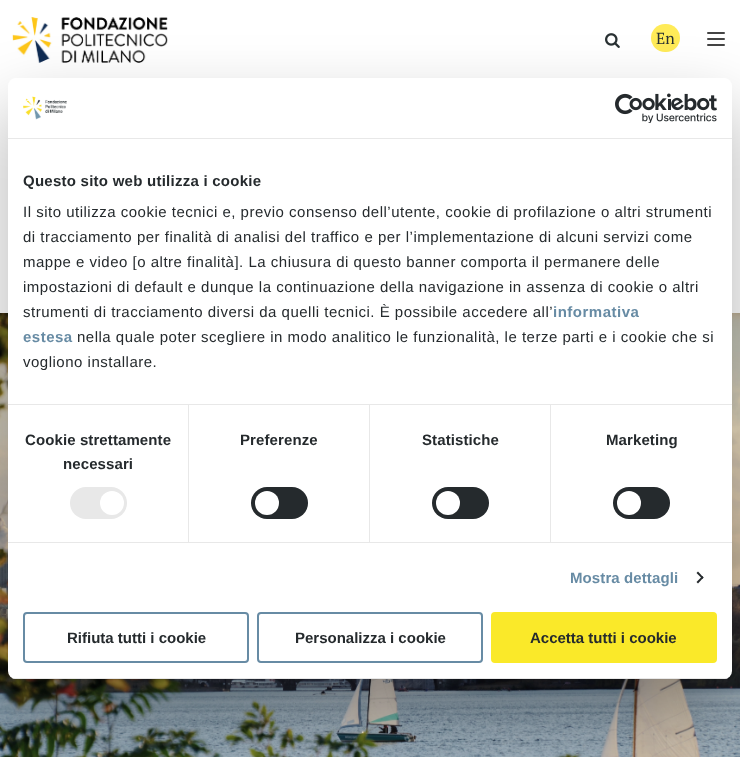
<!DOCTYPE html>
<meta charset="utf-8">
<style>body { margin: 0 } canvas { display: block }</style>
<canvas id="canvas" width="740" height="757"></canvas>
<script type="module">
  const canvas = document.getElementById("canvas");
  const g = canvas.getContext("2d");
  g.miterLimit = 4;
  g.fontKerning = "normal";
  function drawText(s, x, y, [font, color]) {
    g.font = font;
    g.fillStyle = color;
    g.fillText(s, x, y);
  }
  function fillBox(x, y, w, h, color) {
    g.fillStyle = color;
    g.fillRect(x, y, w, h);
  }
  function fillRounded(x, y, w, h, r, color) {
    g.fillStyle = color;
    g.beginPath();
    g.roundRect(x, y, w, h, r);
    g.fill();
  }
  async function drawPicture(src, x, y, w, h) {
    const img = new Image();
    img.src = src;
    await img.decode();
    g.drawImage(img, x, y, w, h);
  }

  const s1 = ["16px PT Serif", "#293133"];
  const s2 = ["bold 15px Liberation Sans", "#252A2D"];
  const s3 = ["15px Liberation Sans", "#252A2D"];
  const s4 = ["bold 15px Liberation Sans", "#678BA4"];

  fillBox(0, 0, 740, 757, "#FFFFFF");
  await drawPicture("pic1.png", 12, 17, 156, 46);
  await drawPicture("pic2.png", 605, 33, 15, 15);
  fillRounded(651, 24, 29, 28, 14, "#FFEB58");
  drawText("En", 656, 44, s1);
  fillRounded(707, 32, 18, 2, 1, "#444444");
  fillRounded(707, 38, 18, 2, 1, "#444444");
  fillRounded(707, 44, 18, 2, 1, "#444444");
  await drawPicture("pic3.png", 0, 313, 740, 444);
  g.fillStyle = "rgba(0, 0, 0, 0.3)";
  g.filter = "blur(34px)";
  g.beginPath();
  g.roundRect(8, 110, 724, 601, 8);
  g.fill();
  g.filter = "none";
  fillRounded(8, 78, 724, 601, 8, "#FFFFFF");
  fillBox(8, 138, 724, 1, "#E8E8E8");
  await drawPicture("pic4.png", 23, 96, 44, 24);
  await drawPicture("pic5.png", 615, 93, 102, 30);
  fillBox(8, 404, 724, 1, "#E8E8E8");
  g.letterSpacing = "0.25px";
  drawText("Questo sito web utilizza i cookie", 23, 186, s2);
  g.letterSpacing = "0.5px";
  drawText("Il sito utilizza cookie tecnici e, previo consenso dell’utente, cookie di profilazione o altri strumenti", 23, 217, s3);
  drawText("di tracciamento per finalità di analisi del traffico e per l’implementazione di alcuni servizi come", 23, 242, s3);
  drawText("mappe e video [o altre finalità]. La chiusura di questo banner comporta il permanere delle", 23, 267, s3);
  drawText("impostazioni di default e dunque la continuazione della navigazione in assenza di cookie o altri", 23, 292, s3);
  drawText("strumenti di tracciamento diversi da quelli tecnici. È possibile accedere all’", 23, 317, s3);
  drawText("informativa", 553, 317, s4);
  drawText("estesa", 23, 342, s4);
  drawText("nella quale poter scegliere in modo analitico le funzionalità, le terze parti e i cookie che si", 77, 342, s3);
  drawText("vogliono installare.", 23, 367, s3);
  fillBox(8, 542, 724, 1, "#E8E8E8");
  fillBox(188, 405, 1, 137, "#E8E8E8");
  g.letterSpacing = "0.1px";
  drawText("Cookie strettamente", 25, 445, s2);
  drawText("necessari", 63, 469, s2);
  fillRounded(70, 487, 57, 32, 16, "#E8E8E8");
  g.fillStyle = "#FFFFFF";
  g.beginPath();
  g.arc(112, 503, 12, 0, Math.PI * 2);
  g.fill();
  fillBox(369, 405, 1, 137, "#E8E8E8");
  drawText("Preferenze", 240, 445, s2);
  fillRounded(251, 487, 57, 32, 16, "#252A2D");
  g.fillStyle = "#FFFFFF";
  g.beginPath();
  g.arc(267, 503, 12, 0, Math.PI * 2);
  g.fill();
  fillBox(550, 405, 1, 137, "#E8E8E8");
  drawText("Statistiche", 422, 445, s2);
  fillRounded(432, 487, 57, 32, 16, "#252A2D");
  g.fillStyle = "#FFFFFF";
  g.beginPath();
  g.arc(448, 503, 12, 0, Math.PI * 2);
  g.fill();
  drawText("Marketing", 606, 445, s2);
  fillRounded(613, 487, 57, 32, 16, "#252A2D");
  g.fillStyle = "#FFFFFF";
  g.beginPath();
  g.arc(629, 503, 12, 0, Math.PI * 2);
  g.fill();
  drawText("Mostra dettagli", 570, 583, s4);
  g.fillStyle = "#252A2D";
  g.beginPath();
  g.moveTo(698, 571.5);
  g.lineTo(703.5, 577.5);
  g.lineTo(702.5, 579);
  g.lineTo(696.5, 573);
  g.closePath();
  g.fill();
  g.beginPath();
  g.moveTo(702.5, 576);
  g.lineTo(703.5, 577.5);
  g.lineTo(698, 583.5);
  g.lineTo(696.5, 582);
  g.closePath();
  g.fill();
  g.save();
  g.beginPath();
  g.roundRect(8, 78, 724, 601, 8);
  g.clip();
  fillBox(8, 678, 724, 1, "#E8E8E8");
  g.restore();
  g.beginPath();
  g.roundRect(24, 613, 224, 49, 3);
  g.strokeStyle = "#678BA4";
  g.lineWidth = 2;
  g.stroke();
  g.letterSpacing = "0px";
  drawText("Rifiuta tutti i cookie", 67, 643, s2);
  g.beginPath();
  g.roundRect(258, 613, 224, 49, 3);
  g.stroke();
  drawText("Personalizza i cookie", 295, 643, s2);
  g.fillStyle = "#FAE929";
  g.beginPath();
  g.roundRect(492, 613, 224, 49, 3);
  g.fill();
  g.strokeStyle = "#FAE929";
  g.stroke();
  drawText("Accetta tutti i cookie", 530, 643, s2);
</script>
